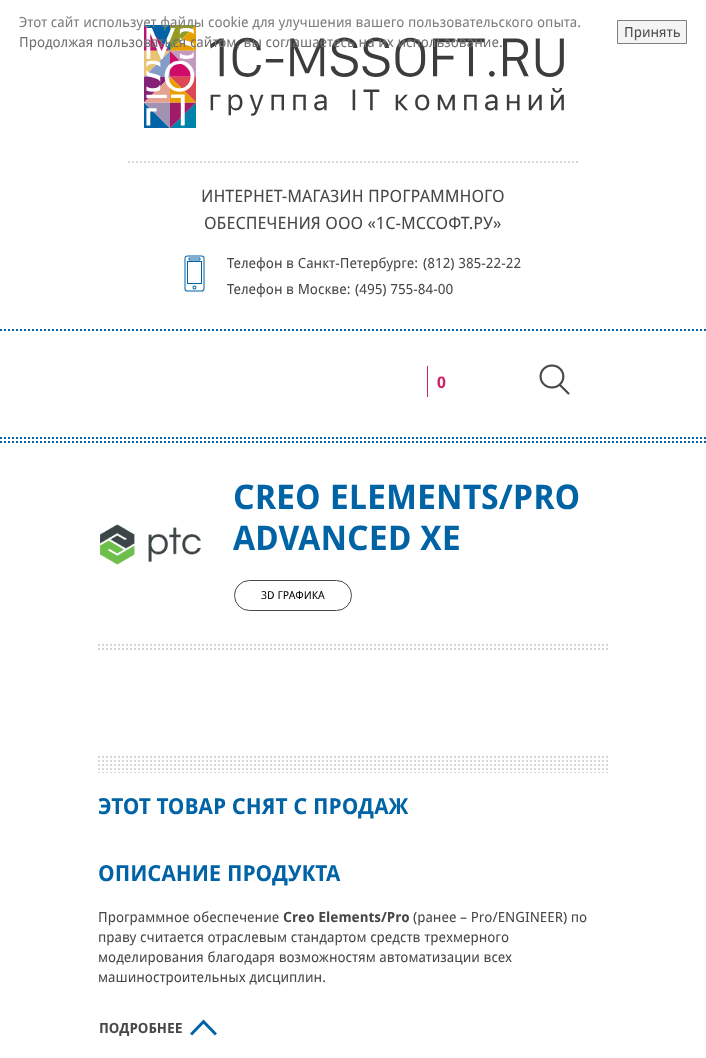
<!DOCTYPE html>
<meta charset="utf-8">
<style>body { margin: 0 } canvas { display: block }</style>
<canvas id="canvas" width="706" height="1058"></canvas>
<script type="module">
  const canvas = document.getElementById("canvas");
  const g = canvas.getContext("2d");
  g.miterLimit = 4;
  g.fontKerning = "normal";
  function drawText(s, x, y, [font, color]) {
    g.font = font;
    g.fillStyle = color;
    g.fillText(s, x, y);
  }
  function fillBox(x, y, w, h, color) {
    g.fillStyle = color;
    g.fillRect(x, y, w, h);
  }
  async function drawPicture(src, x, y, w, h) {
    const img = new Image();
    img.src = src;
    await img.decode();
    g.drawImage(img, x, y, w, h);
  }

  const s1 = ["14px Droid Sans", "#7C7E7E"];
  const s2 = ["14px Droid Sans", "#707170"];
  const s3 = ["14px Droid Sans", "#4D4D4D"];
  const s4 = ["17px Droid Sans", "#464848"];
  const s5 = ["14px Droid Sans", "#464848"];
  const s6 = ["bold 16px Droid Sans", "#CF2267"];
  const s7 = ["bold 34px Droid Sans", "#0063A5"];
  const s8 = ["11px Droid Sans", "#000000"];
  const s9 = ["bold 22px Droid Sans", "#0063A5"];
  const s10 = ["bold 14px Droid Sans", "#464848"];

  fillBox(0, 0, 706, 1058, "#FFFFFF");
  await drawPicture("pic1.png", 144, 25, 420, 103);
  drawText("Этот сайт использует файлы cookie для улучшения вашего пользовательского опыта.", 19, 27, s1);
  drawText("Продолжая пользоваться сайтом, вы соглашаетесь на их использование.", 19, 47, s2);
  g.fillStyle = "#F4F4F4";
  g.beginPath();
  g.rect(617.5, 20.5, 69, 23);
  g.fill();
  g.strokeStyle = "#7E7F7F";
  g.stroke();
  drawText("Принять", 624, 37, s3);
  await drawPicture("pic2.png", 128, 161, 450, 2);
  drawText("ИНТЕРНЕТ-МАГАЗИН ПРОГРАММНОГО", 201, 202, s4);
  drawText("ОБЕСПЕЧЕНИЯ ООО «1С-МССОФТ.РУ»", 204, 229, s4);
  await drawPicture("pic3.png", 184, 255, 21, 37);
  drawText("Телефон в Санкт-Петербурге:", 227, 268, s5);
  drawText("(812) 385-22-22", 423, 268, s5);
  drawText("Телефон в Москве:", 227, 294, s5);
  drawText("(495) 755-84-00", 355, 294, s5);
  await drawPicture("pic4.png", 0, 329, 706, 2);
  fillBox(427, 366, 1, 31, "#CF2267");
  drawText("0", 437, 388, s6);
  await drawPicture("pic5.png", 539, 364, 31, 31);
  await drawPicture("pic6.png", 0, 437, 706, 6);
  await drawPicture("pic7.png", 100, 524, 101, 41);
  drawText("CREO ELEMENTS/PRO", 233, 509, s7);
  drawText("ADVANCED XE", 233, 550, s7);
  g.beginPath();
  g.roundRect(234.5, 580.5, 117, 30, 15);
  g.strokeStyle = "#464848";
  g.stroke();
  drawText("3D ГРАФИКА", 261, 599, s8);
  await drawPicture("pic8.png", 98, 644, 510, 6);
  await drawPicture("pic9.png", 98, 756, 510, 17);
  drawText("ЭТОТ ТОВАР СНЯТ С ПРОДАЖ", 98, 814, s9);
  drawText("ОПИСАНИЕ ПРОДУКТА", 98, 881, s9);
  drawText("Программное обеспечение", 98, 922, s5);
  drawText("Creo Elements/Pro", 283, 922, s10);
  drawText("(ранее – Pro/ENGINEER) по", 413, 922, s5);
  drawText("праву считается отраслевым стандартом средств трехмерного", 98, 942, s5);
  drawText("моделирования благодаря возможностям автоматизации всех", 98, 962, s5);
  drawText("машиностроительных дисциплин.", 98, 982, s5);
  drawText("ПОДРОБНЕЕ", 99, 1033, s10);
  await drawPicture("pic10.png", 190, 1019, 27, 17);
</script>
